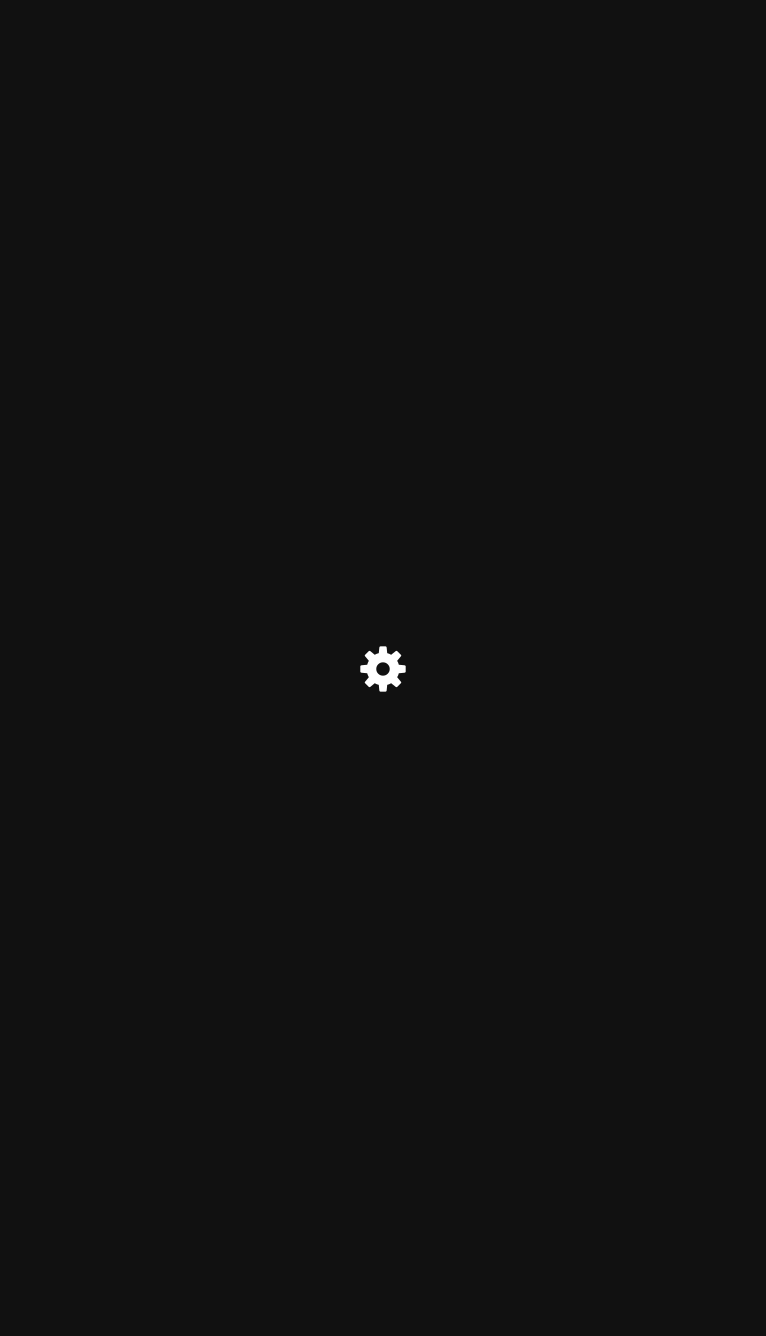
<!DOCTYPE html>
<meta charset="utf-8">
<style>body { margin: 0 } canvas { display: block }</style>
<canvas id="canvas" width="766" height="1336"></canvas>
<script type="module">
  const canvas = document.getElementById("canvas");
  const g = canvas.getContext("2d");
  g.miterLimit = 4;
  g.fontKerning = "normal";
  function fillBox(x, y, w, h, color) {
    g.fillStyle = color;
    g.fillRect(x, y, w, h);
  }
  async function drawPicture(src, x, y, w, h) {
    const img = new Image();
    img.src = src;
    await img.decode();
    g.drawImage(img, x, y, w, h);
  }

  fillBox(0, 0, 766, 1336, "#111111");
  await drawPicture("pic1.png", 360, 646, 46, 46);
</script>
